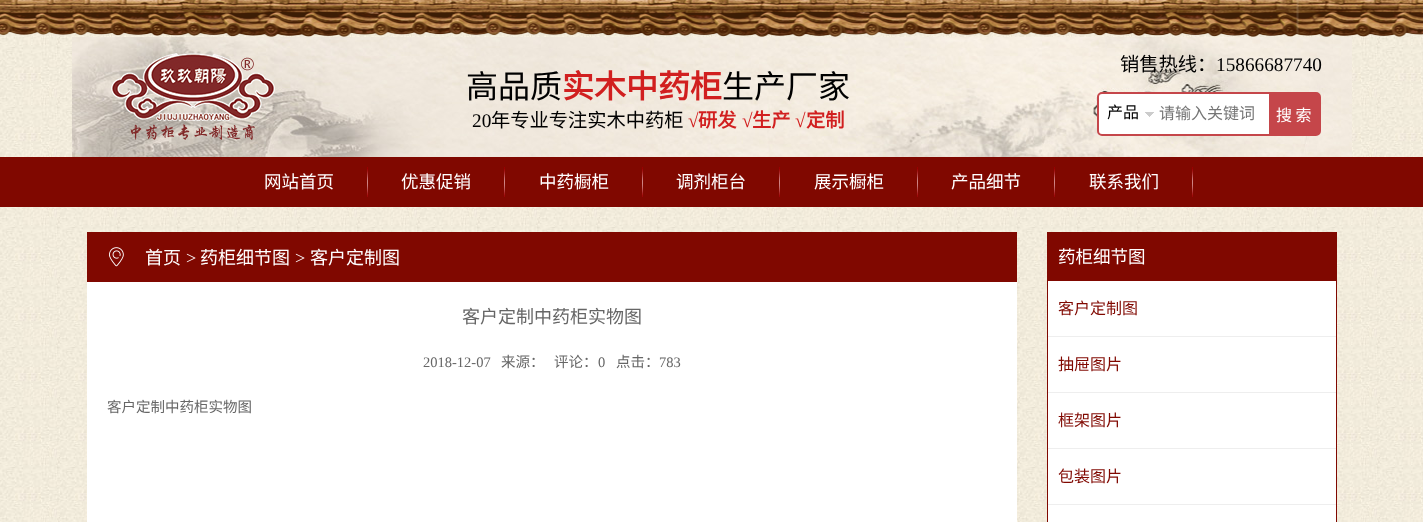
<!DOCTYPE html>
<meta charset="utf-8">
<style>body { margin: 0 } canvas { display: block }</style>
<canvas id="canvas" width="1423" height="522"></canvas>
<script type="module">
  const canvas = document.getElementById("canvas");
  const g = canvas.getContext("2d");
  g.miterLimit = 4;
  g.fontKerning = "normal";
  function drawText(s, x, y, [font, color]) {
    g.font = font;
    g.fillStyle = color;
    g.fillText(s, x, y);
  }
  function fillBox(x, y, w, h, color) {
    g.fillStyle = color;
    g.fillRect(x, y, w, h);
  }
  async function drawPicture(src, x, y, w, h) {
    const img = new Image();
    img.src = src;
    await img.decode();
    g.drawImage(img, x, y, w, h);
  }

  const s1 = ["32px Noto Sans CJK SC", "#000000"];
  const s2 = ["bold 32px Noto Sans CJK SC", "#D11F1F"];
  const s3 = ["19.25px Liberation Serif", "#000000"];
  const s4 = ["19.25px Noto Sans CJK SC", "#000000"];
  const s5 = ["bold 19.25px Liberation Serif", "#D11F1F"];
  const s6 = ["bold 19.25px Noto Sans CJK SC", "#D11F1F"];
  const s7 = ["16px Noto Sans CJK SC", "#000000"];
  const s8 = ["16px Noto Sans CJK SC", "#757575"];
  const s9 = ["16px Noto Sans CJK SC", "#FFFFFF"];
  const s10 = ["17.5px Noto Sans CJK SC", "#FFFFFF"];
  const s11 = ["18px Noto Sans CJK SC", "#FFFFFF"];
  const s12 = ["18px Liberation Serif", "#FFFFFF"];
  const s13 = ["18px Noto Sans CJK SC", "#666666"];
  const s14 = ["14.5px Liberation Serif", "#666666"];
  const s15 = ["14.5px Noto Sans CJK SC", "#666666"];
  const s16 = ["16px Noto Sans CJK SC", "#800800"];

  fillBox(0, 0, 1423, 522, "#FFFFFF");
  await drawPicture("pic1.png", 0, 0, 1423, 522);
  await drawPicture("pic2.png", 0, 0, 1423, 37);
  await drawPicture("pic3.png", 72, 37, 1280, 120);
  await drawPicture("pic4.png", 111, 53, 164, 87);
  drawText("高品质", 466, 98, s1);
  drawText("实木中药柜", 562, 98, s2);
  drawText("生产厂家", 722, 98, s1);
  drawText("20", 472, 127, s3);
  drawText("年专业专注实木中药柜", 491, 127, s4);
  drawText("√", 688, 127, s5);
  drawText("研发", 698, 127, s6);
  drawText("√", 742, 127, s5);
  drawText("生产", 752, 127, s6);
  drawText("√", 795, 127, s5);
  drawText("定制", 806, 127, s6);
  drawText("销售热线：", 1120, 71, s4);
  drawText("15866687740", 1216, 71, s3);
  g.fillStyle = "#FFFFFF";
  g.beginPath();
  g.roundRect(1098, 93, 222, 42, 4);
  g.fill();
  g.strokeStyle = "#C5464A";
  g.lineWidth = 2;
  g.stroke();
  drawText("产品", 1107, 118, s7);
  await drawPicture("pic5.png", 1145, 112, 9, 5);
  drawText("请输入关键词", 1159, 119, s8);
  fillBox(1269, 94, 50, 40, "#C5464A");
  drawText("搜 索", 1276, 121, s9);
  fillBox(0, 157, 1423, 50, "#800800");
  await drawPicture("pic6.png", 367, 167, 1, 30);
  drawText("网站首页", 264, 188, s10);
  await drawPicture("pic6.png", 504, 167, 1, 30);
  drawText("优惠促销", 401, 188, s10);
  await drawPicture("pic6.png", 642, 167, 1, 30);
  drawText("中药橱柜", 539, 188, s10);
  await drawPicture("pic6.png", 779, 167, 1, 30);
  drawText("调剂柜台", 676, 188, s10);
  await drawPicture("pic6.png", 917, 167, 1, 30);
  drawText("展示橱柜", 814, 188, s10);
  await drawPicture("pic6.png", 1054, 167, 1, 30);
  drawText("产品细节", 951, 188, s10);
  await drawPicture("pic6.png", 1192, 167, 1, 30);
  drawText("联系我们", 1089, 188, s10);
  fillBox(87, 282, 930, 240, "#FFFFFF");
  fillBox(87, 232, 930, 50, "#800800");
  await drawPicture("pic7.png", 109, 247, 15, 20);
  drawText("首页", 145, 264, s11);
  drawText(">", 186, 264, s12);
  drawText("药柜细节图", 200, 264, s11);
  drawText(">", 295, 264, s12);
  drawText("客户定制图", 310, 264, s11);
  drawText("客户定制中药柜实物图", 462, 323, s13);
  drawText("2018-12-07", 423, 367, s14);
  drawText("来源：", 501, 367, s15);
  drawText("评论：", 554, 367, s15);
  drawText("0", 598, 367, s14);
  drawText("点击：", 616, 367, s15);
  drawText("783", 659, 367, s14);
  drawText("客户定制中药柜实物图", 107, 412, s15);
  fillBox(1048, 281, 288, 241, "#FFFFFF");
  g.strokeStyle = "#800800";
  g.lineWidth = 1;
  g.strokeRect(1047.5, 232.5, 289, 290);
  fillBox(1048, 233, 288, 48, "#800800");
  drawText("药柜细节图", 1058, 263, s10);
  fillBox(1048, 336, 288, 1, "#EEEEEE");
  drawText("客户定制图", 1058, 314, s16);
  fillBox(1048, 392, 288, 1, "#EEEEEE");
  drawText("抽屉图片", 1058, 370, s16);
  fillBox(1048, 448, 288, 1, "#EEEEEE");
  drawText("框架图片", 1058, 426, s16);
  fillBox(1048, 504, 288, 1, "#EEEEEE");
  drawText("包装图片", 1058, 482, s16);
</script>
